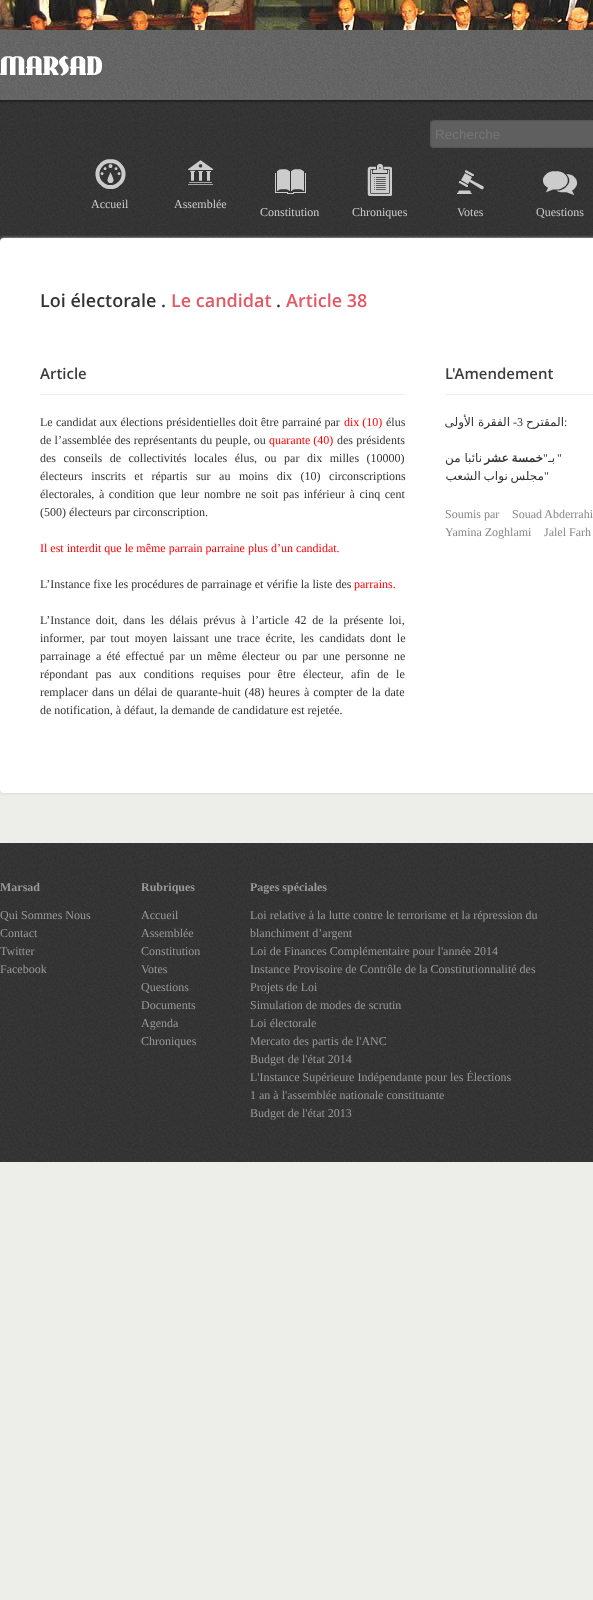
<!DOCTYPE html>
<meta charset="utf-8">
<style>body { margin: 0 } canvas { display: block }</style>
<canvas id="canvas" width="593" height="1600"></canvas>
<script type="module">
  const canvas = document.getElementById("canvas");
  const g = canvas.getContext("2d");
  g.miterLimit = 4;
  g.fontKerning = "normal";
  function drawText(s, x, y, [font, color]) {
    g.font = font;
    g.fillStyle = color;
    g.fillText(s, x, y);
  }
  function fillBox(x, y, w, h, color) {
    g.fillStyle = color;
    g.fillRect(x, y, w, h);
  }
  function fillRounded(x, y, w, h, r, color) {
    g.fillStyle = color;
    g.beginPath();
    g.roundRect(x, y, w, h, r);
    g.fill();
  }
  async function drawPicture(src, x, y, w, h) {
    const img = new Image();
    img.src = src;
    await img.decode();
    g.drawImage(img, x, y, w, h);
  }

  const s1 = ["13.5px Liberation Sans", "#757575"];
  const s2 = ["12px Liberation Serif", "#CCCCCC"];
  const s3 = ["600 18px Open Sans", "#333333"];
  const s4 = ["600 18px Open Sans", "#E05964"];
  const s5 = ["600 15px Open Sans", "#3D3D3D"];
  const s6 = ["12px Liberation Serif", "#333333"];
  const s7 = ["12px Liberation Serif", "#FF0000"];
  const s8 = ["12px DejaVu Sans", "#333333"];
  const s9 = ["bold 12px DejaVu Sans", "#333333"];
  const s10 = ["12px Liberation Serif", "#888888"];
  const s11 = ["bold 12px Liberation Serif", "#999999"];
  const s12 = ["12px Liberation Serif", "#999999"];

  fillBox(0, 0, 593, 1600, "#EDEDEA");
  await drawPicture("pic1.png", 0, 0, 593, 30);
  await drawPicture("pic2.png", 0, 30, 593, 212);
  await drawPicture("pic3.png", 0, 55, 102, 21);
  await drawPicture("pic4.png", 430, 120, 163, 28);
  drawText("Recherche", 435, 139, s1);
  await drawPicture("pic5.png", 95, 159, 31, 30);
  drawText("Accueil", 91, 208, s2);
  await drawPicture("pic6.png", 188, 160, 25, 25);
  drawText("Assemblée", 174, 208, s2);
  await drawPicture("pic7.png", 275, 169, 31, 25);
  drawText("Constitution", 260, 216, s2);
  await drawPicture("pic8.png", 367, 163, 25, 33);
  drawText("Chroniques", 352, 216, s2);
  await drawPicture("pic9.png", 457, 170, 27, 24);
  drawText("Votes", 457, 216, s2);
  await drawPicture("pic10.png", 543, 171, 34, 24);
  drawText("Questions", 536, 216, s2);
  g.filter = "blur(1.5px)";
  g.beginPath();
  g.roundRect(0, 238, 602, 555, 4);
  g.fill();
  g.filter = "none";
  fillRounded(0, 238, 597, 555, 4, "#FFFFFF");
  drawText("Loi électorale .", 40, 307, s3);
  drawText("Le candidat", 171, 307, s4);
  drawText(".", 276, 307, s3);
  drawText("Article 38", 286, 307, s4);
  fillBox(40, 394, 365, 1, "#ECECEC");
  drawText("Article", 40, 379, s5);
  g.wordSpacing = "0.25px";
  drawText("Le candidat aux élections présidentielles doit être parrainé par", 40, 426, s6);
  g.wordSpacing = "0px";
  drawText("dix (10)", 344, 426, s7);
  drawText("élus", 386, 426, s6);
  g.wordSpacing = "0.25px";
  drawText("de l’assemblée des représentants du peuple, ou", 40, 444, s6);
  g.wordSpacing = "0px";
  drawText("quarante (40)", 269, 444, s7);
  g.wordSpacing = "0.25px";
  drawText("des présidents", 337, 444, s6);
  g.wordSpacing = "4.5px";
  drawText("des conseils de collectivités locales élus, ou par dix milles (10000)", 40, 462, s6);
  g.wordSpacing = "5.5px";
  drawText("électeurs inscrits et répartis sur au moins dix (10) circonscriptions", 40, 480, s6);
  g.wordSpacing = "1.6px";
  drawText("électorales, à condition que leur nombre ne soit pas inférieur à cinq cent", 40, 498, s6);
  g.wordSpacing = "0px";
  drawText("(500) électeurs par circonscription.", 40, 516, s6);
  drawText("Il est interdit que le même parrain parraine plus d’un candidat.", 40, 552, s7);
  drawText("L’Instance fixe les procédures de parrainage et vérifie la liste des", 40, 588, s6);
  drawText("parrains.", 354, 588, s7);
  g.wordSpacing = "2.6px";
  drawText("L’Instance doit, dans les délais prévus à l’article 42 de la présente loi,", 40, 624, s6);
  g.wordSpacing = "2.4px";
  drawText("informer, par tout moyen laissant une trace écrite, les candidats dont le", 40, 642, s6);
  g.wordSpacing = "2.25px";
  drawText("parrainage a été effectué par un même électeur ou par une personne ne", 40, 660, s6);
  g.wordSpacing = "4.5px";
  drawText("répondant pas aux conditions requises pour être électeur, afin de le", 40, 678, s6);
  g.wordSpacing = "1px";
  drawText("remplacer dans un délai de quarante-huit (48) heures à compter de la date", 40, 696, s6);
  g.wordSpacing = "0px";
  drawText("de notification, à défaut, la demande de candidature est rejetée.", 40, 714, s6);
  fillBox(445, 394, 148, 1, "#ECECEC");
  drawText("L'Amendement", 445, 379, s5);
  g.direction = "rtl";
  drawText("الفقرة الأولى", 510, 426, s8);
  drawText("-", 517, 426, s6);
  g.direction = "ltr";
  drawText("3", 517, 426, s6);
  g.direction = "rtl";
  drawText("المقترح", 564, 426, s8);
  g.direction = "ltr";
  drawText(":", 564, 426, s6);
  g.direction = "rtl";
  drawText("نائبا من", 482, 462, s8);
  drawText("\"", 548, 462, s6);
  g.wordSpacing = "-1px";
  drawText("خمسة عشر", 543, 462, s9);
  g.wordSpacing = "0px";
  drawText("بـ", 555, 462, s8);
  drawText("\"", 562, 462, s6);
  g.wordSpacing = "-1px";
  drawText("مجلس نواب الشعب", 544, 480, s8);
  g.wordSpacing = "0px";
  g.direction = "ltr";
  drawText("\"", 544, 480, s6);
  drawText("Souad Abderrahi", 512, 518, s10);
  drawText("Yamina Zoghlami", 445, 536, s10);
  drawText("Jalel Farh", 544, 536, s10);
  drawText("Soumis par", 445, 518, s10);
  await drawPicture("pic11.png", 0, 843, 593, 319);
  drawText("Marsad", 0, 891, s11);
  drawText("Qui Sommes Nous", 0, 919, s12);
  drawText("Contact", 0, 937, s12);
  drawText("Twitter", 0, 955, s12);
  drawText("Facebook", 0, 973, s12);
  drawText("Rubriques", 141, 891, s11);
  drawText("Accueil", 141, 919, s12);
  drawText("Assemblée", 141, 937, s12);
  drawText("Constitution", 141, 955, s12);
  drawText("Votes", 141, 973, s12);
  drawText("Questions", 141, 991, s12);
  drawText("Documents", 141, 1009, s12);
  drawText("Agenda", 141, 1027, s12);
  drawText("Chroniques", 141, 1045, s12);
  drawText("Pages spéciales", 250, 891, s11);
  drawText("Loi relative à la lutte contre le terrorisme et la répression du", 250, 919, s12);
  drawText("blanchiment d’argent", 250, 937, s12);
  drawText("Loi de Finances Complémentaire pour l'année 2014", 250, 955, s12);
  drawText("Instance Provisoire de Contrôle de la Constitutionnalité des", 250, 973, s12);
  drawText("Projets de Loi", 250, 991, s12);
  drawText("Simulation de modes de scrutin", 250, 1009, s12);
  drawText("Loi électorale", 250, 1027, s12);
  drawText("Mercato des partis de l'ANC", 250, 1045, s12);
  drawText("Budget de l'état 2014", 250, 1063, s12);
  drawText("L'Instance Supérieure Indépendante pour les Élections", 250, 1081, s12);
  drawText("1 an à l'assemblée nationale constituante", 250, 1099, s12);
  drawText("Budget de l'état 2013", 250, 1117, s12);
</script>
